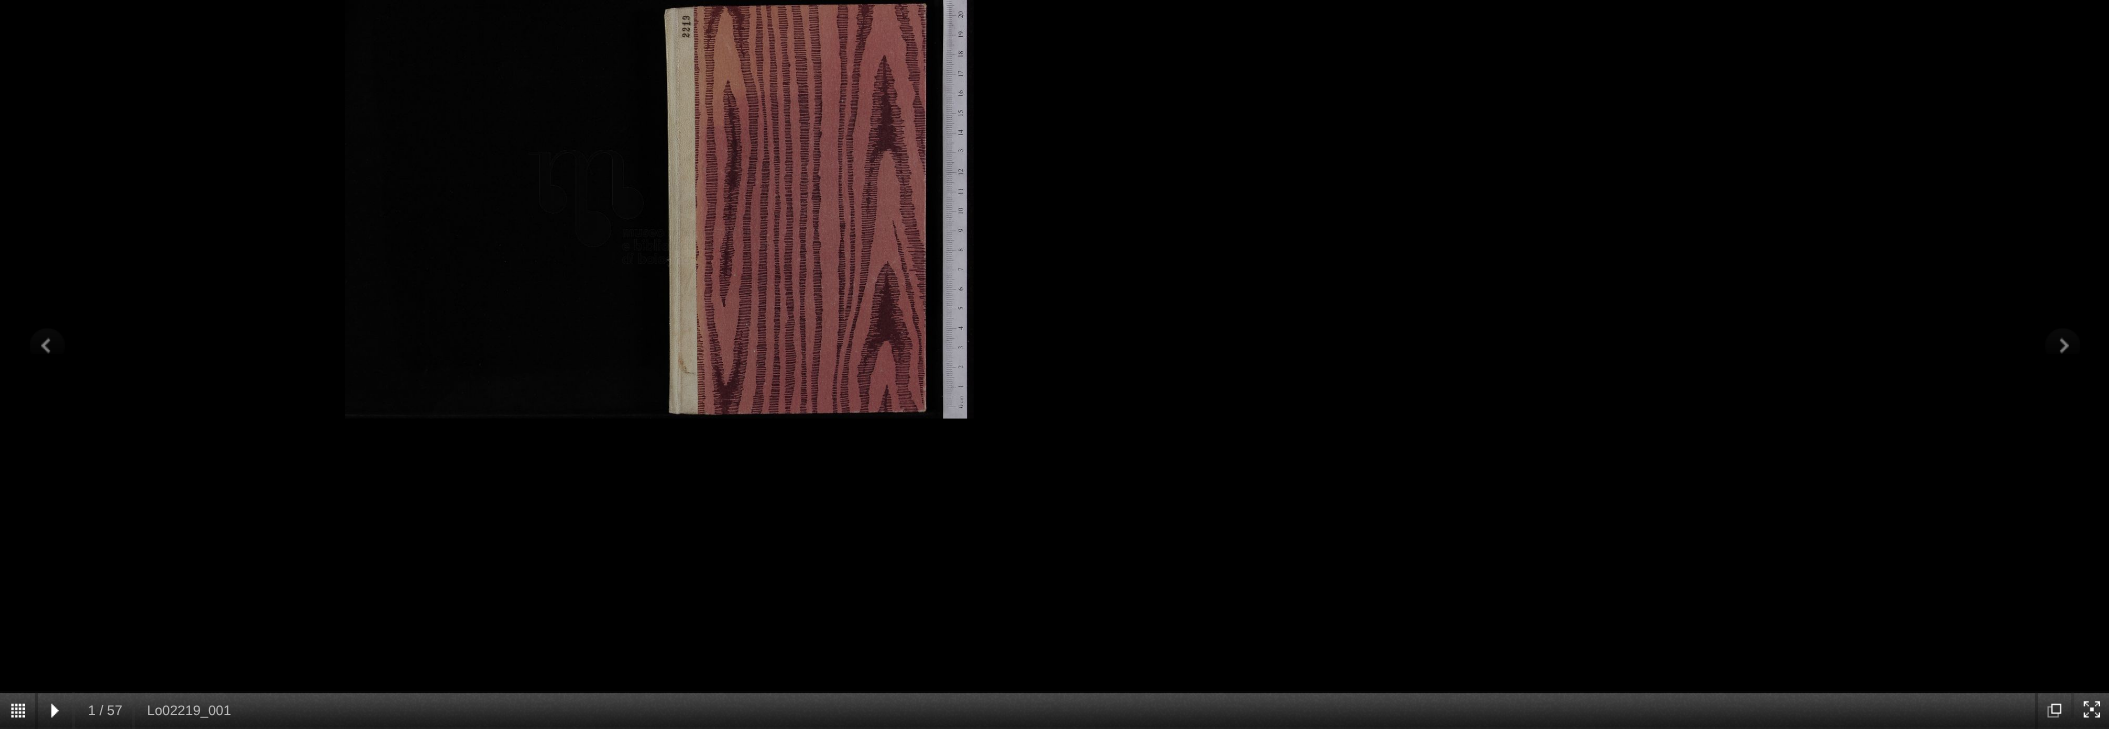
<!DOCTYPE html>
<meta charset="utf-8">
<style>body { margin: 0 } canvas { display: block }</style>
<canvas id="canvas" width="2109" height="729"></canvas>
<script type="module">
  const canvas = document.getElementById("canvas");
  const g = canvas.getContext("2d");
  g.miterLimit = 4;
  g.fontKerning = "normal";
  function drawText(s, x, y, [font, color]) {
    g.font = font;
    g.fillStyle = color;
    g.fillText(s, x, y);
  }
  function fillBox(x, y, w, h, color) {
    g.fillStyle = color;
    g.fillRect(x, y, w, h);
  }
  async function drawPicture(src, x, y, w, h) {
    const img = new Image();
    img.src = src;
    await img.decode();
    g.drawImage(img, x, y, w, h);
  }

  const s1 = ["13.75px Liberation Sans", "#BBBBBB"];

  fillBox(0, 0, 2109, 729, "#FFFFFF");
  fillBox(0, 0, 2109, 693, "#000000");
  await drawPicture("pic1.png", 345, 0, 629, 419);
  await drawPicture("pic2.png", 30, 328, 35, 26);
  await drawPicture("pic3.png", 2045, 328, 35, 26);
  await drawPicture("pic4.png", 0, 691, 2109, 38);
  await drawPicture("pic5.png", 11, 703, 14, 15);
  fillBox(35, 692, 3, 37, "rgba(12, 12, 12, 0.34)");
  await drawPicture("pic6.png", 51, 703, 8, 15);
  fillBox(72, 692, 3, 37, "rgba(68, 68, 68, 0.16)");
  fillBox(132, 707, 3, 22, "rgba(68, 68, 68, 0.16)");
  drawText("1 / 57", 88, 715, s1);
  drawText("Lo02219_001", 147, 715, s1);
  fillBox(2035, 692, 3, 37, "rgba(12, 12, 12, 0.34)");
  await drawPicture("pic7.png", 2047, 703, 15, 15);
  fillBox(2071, 692, 3, 26, "rgba(27, 27, 27, 0.26)");
  await drawPicture("pic8.png", 2083, 701, 17, 17);
</script>
